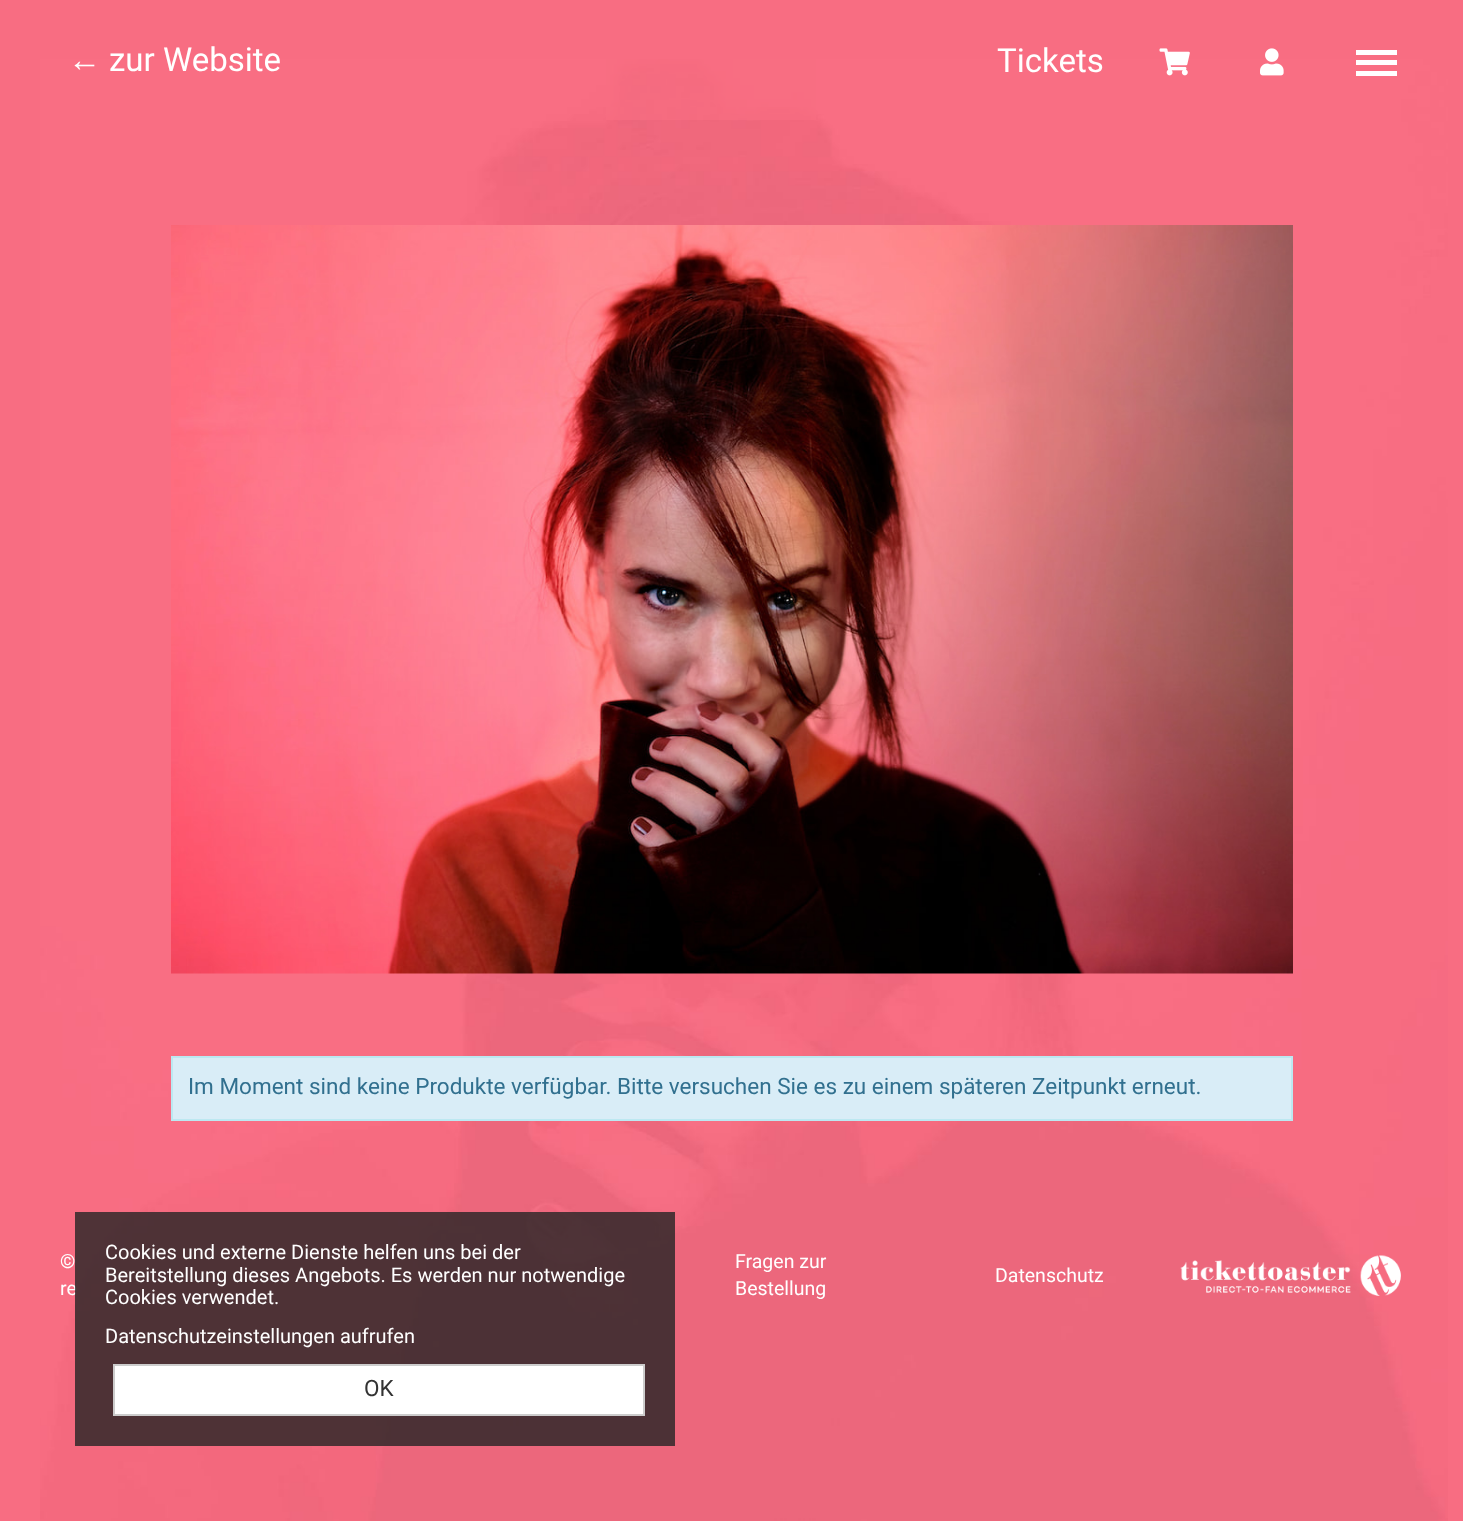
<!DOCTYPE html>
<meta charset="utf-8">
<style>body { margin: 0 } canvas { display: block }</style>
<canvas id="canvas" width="1463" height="1521"></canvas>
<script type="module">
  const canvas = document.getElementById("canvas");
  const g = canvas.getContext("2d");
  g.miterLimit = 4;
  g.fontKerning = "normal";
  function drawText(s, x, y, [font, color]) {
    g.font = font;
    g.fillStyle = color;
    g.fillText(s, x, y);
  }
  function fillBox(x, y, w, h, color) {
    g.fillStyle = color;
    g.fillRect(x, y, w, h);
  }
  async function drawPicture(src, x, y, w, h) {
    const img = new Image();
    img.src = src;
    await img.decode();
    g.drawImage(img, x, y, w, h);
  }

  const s1 = ["33px Liberation Sans", "#FFFFFF"];
  const s2 = ["33px Roboto", "#FFFFFF"];
  const s3 = ["22.5px Roboto", "#31708F"];
  const s4 = ["19.5px Roboto", "#FFFFFF"];
  const s5 = ["20px Roboto", "#FFFFFF"];
  const s6 = ["22.5px Roboto", "#333333"];

  fillBox(0, 0, 1463, 1521, "#F86D82");
  await drawPicture("pic1.png", 40, 59, 1408, 1462);
  fillBox(606, 59, 210, 61, "rgba(248, 109, 130, 0.7)");
  drawText("←", 68, 71, s1);
  drawText("zur Website", 109, 71, s2);
  drawText("Tickets", 997, 72, s2);
  await drawPicture("pic2.png", 1159, 48, 31, 28);
  await drawPicture("pic3.png", 1260, 48, 24, 28);
  fillBox(1356, 60, 41, 5, "#FFFFFF");
  fillBox(1356, 50, 41, 5, "#FFFFFF");
  fillBox(1356, 71, 41, 5, "#FFFFFF");
  await drawPicture("pic4.png", 171, 225, 1122, 749);
  g.fillStyle = "#D9EDF7";
  g.beginPath();
  g.rect(172, 1057, 1120, 63);
  g.fill();
  g.strokeStyle = "#BCE8F1";
  g.lineWidth = 2;
  g.stroke();
  drawText("Im Moment sind keine Produkte verfügbar. Bitte versuchen Sie es zu einem späteren Zeitpunkt erneut.", 188, 1094, s3);
  drawText("re", 60, 1295, s4);
  fillBox(75, 1212, 600, 234, "rgba(36, 36, 36, 0.8)");
  drawText("Cookies und externe Dienste helfen uns bei der", 105, 1259, s5);
  drawText("Bereitstellung dieses Angebots. Es werden nur notwendige", 105, 1282, s5);
  drawText("Cookies verwendet.", 105, 1304, s5);
  drawText("Datenschutzeinstellungen aufrufen", 105, 1343, s5);
  g.beginPath();
  g.rect(114, 1365, 530, 50);
  g.fill();
  g.strokeStyle = "#CCCCCC";
  g.stroke();
  drawText("OK", 364, 1396, s6);
  drawText("©", 60, 1268, s4);
  drawText("Fragen zur", 735, 1268, s4);
  drawText("Bestellung", 735, 1295, s4);
  drawText("Datenschutz", 995, 1282, s4);
  await drawPicture("pic5.png", 1180, 1255, 221, 41);
</script>
